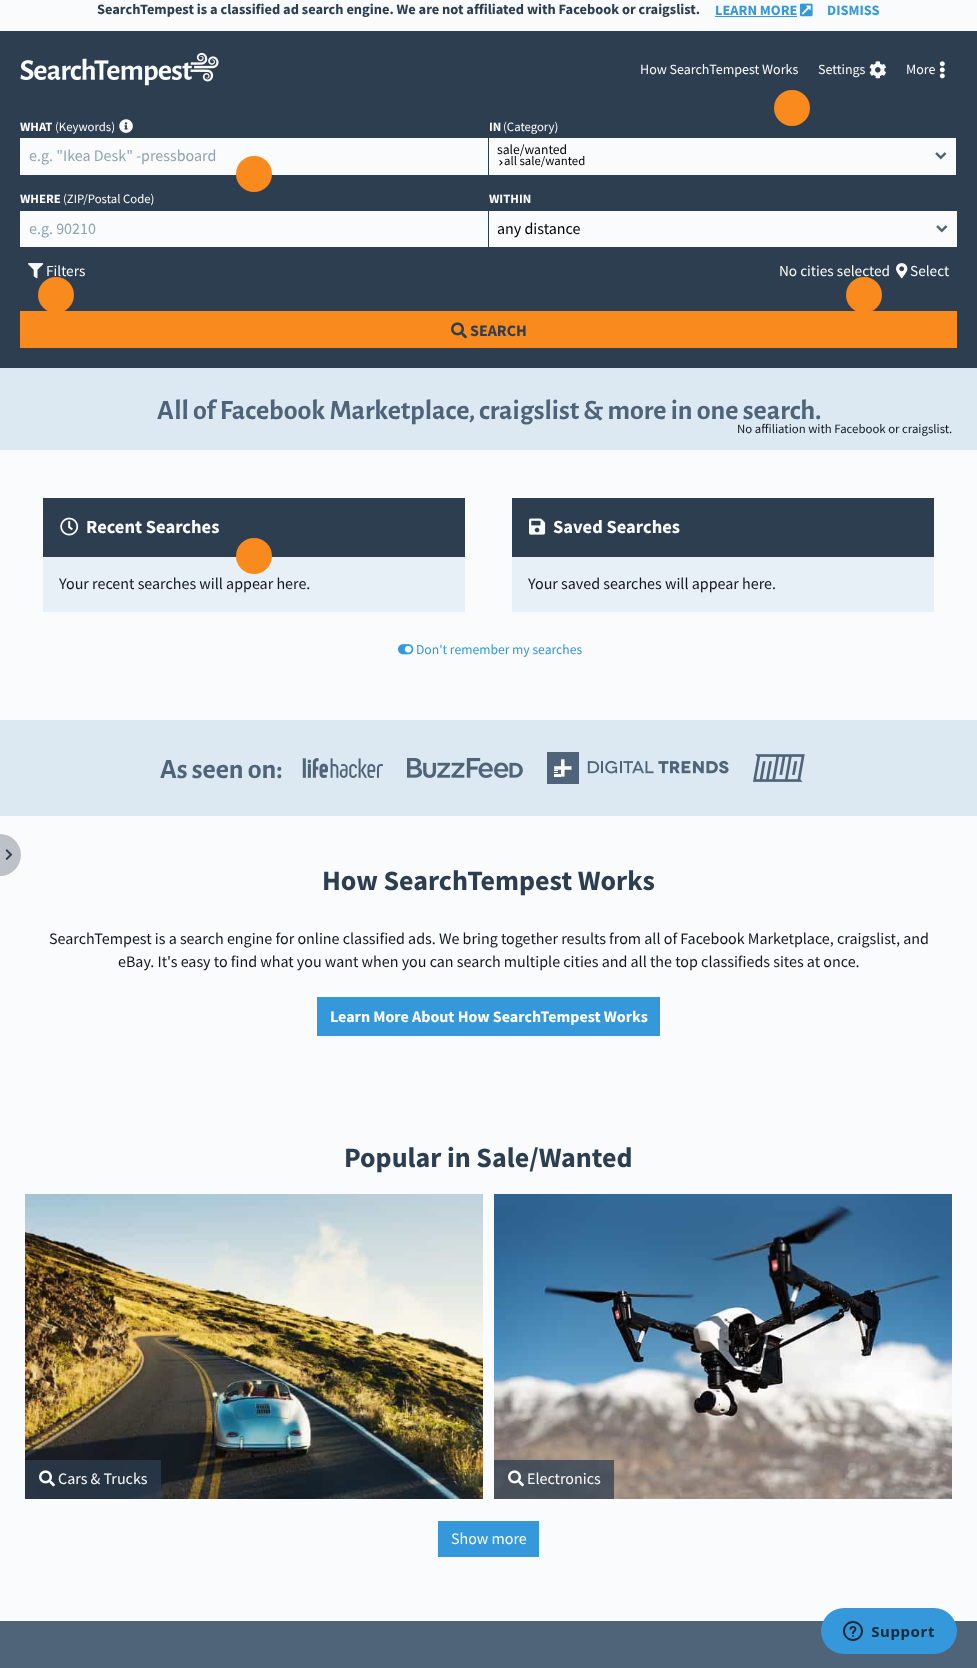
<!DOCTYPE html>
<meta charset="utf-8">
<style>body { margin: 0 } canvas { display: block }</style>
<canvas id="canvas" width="977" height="1668"></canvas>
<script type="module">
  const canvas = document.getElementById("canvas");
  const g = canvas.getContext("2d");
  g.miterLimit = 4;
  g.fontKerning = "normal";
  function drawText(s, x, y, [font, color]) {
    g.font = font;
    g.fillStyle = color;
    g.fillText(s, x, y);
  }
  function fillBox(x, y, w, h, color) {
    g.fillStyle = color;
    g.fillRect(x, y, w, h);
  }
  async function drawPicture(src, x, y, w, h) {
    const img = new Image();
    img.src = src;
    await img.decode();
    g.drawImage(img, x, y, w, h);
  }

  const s1 = ["bold 14.4px Source Sans Pro", "#2C3E50"];
  const s2 = ["bold 14.4px Source Sans Pro", "#3498DB"];
  const s3 = ["14px Source Sans Pro", "#F9FBFC"];
  const s4 = ["bold 12.75px Source Sans Pro", "#F9FBFC"];
  const s5 = ["12.75px Source Sans Pro", "#F9FBFC"];
  const s6 = ["16px Source Sans Pro", "#91A4B7"];
  const s7 = ["13.6px Source Sans Pro", "#000000"];
  const s8 = ["12.75px Source Sans Pro", "#000000"];
  const s9 = ["16px Source Sans Pro", "#000000"];
  const s10 = ["15.25px Source Sans Pro", "#F9FBFC"];
  const s11 = ["bold 16px Source Sans Pro", "#2C3E50"];
  const s12 = ["bold 28px Alegreya Sans", "#4F6479"];
  const s13 = ["12.75px Source Sans Pro", "#11181F"];
  const s14 = ["bold 18.5px Source Sans Pro", "#F9FBFC"];
  const s15 = ["16px Source Sans Pro", "#11181F"];
  const s16 = ["13.6px Source Sans Pro", "#3498DB"];
  const s17 = ["bold 28px Source Sans Pro", "#2C3E50"];
  const s18 = ["bold 16px Source Sans Pro", "#FFFFFF"];
  const s19 = ["16px Source Sans Pro", "#F9FBFC"];

  fillBox(0, 0, 977, 1668, "#F9FBFC");
  drawText("SearchTempest is a classified ad search engine. We are not affiliated with Facebook or craigslist.", 97, 14, s1);
  drawText("LEARN MORE", 715, 15, s2);
  fillBox(715, 16, 82, 1, "#3498DB");
  await drawPicture("pic1.png", 800, 3, 13, 14);
  drawText("DISMISS", 827, 15, s2);
  fillBox(0, 31, 977, 337, "#2C3E50");
  await drawPicture("pic2.png", 20, 52, 199, 34);
  drawText("How SearchTempest Works", 640, 74, s3);
  drawText("Settings", 818, 74, s3);
  await drawPicture("pic3.png", 869, 61, 17, 18);
  drawText("More", 906, 74, s3);
  await drawPicture("pic4.png", 939, 61, 6, 18);
  g.fillStyle = "#F98A1E";
  g.beginPath();
  g.arc(792, 108, 18, 0, Math.PI * 2);
  g.fill();
  drawText("WHAT", 20, 131, s4);
  drawText("(Keywords)", 55, 131, s5);
  await drawPicture("pic5.png", 119, 119, 14, 14);
  fillBox(20, 138, 468, 37, "#F9FBFC");
  drawText("e.g. \"Ikea Desk\" -pressboard", 29, 161, s6);
  g.fillStyle = "#F98A1E";
  g.beginPath();
  g.arc(254, 174, 18, 0, Math.PI * 2);
  g.fill();
  drawText("IN", 489, 131, s4);
  drawText("(Category)", 503, 131, s5);
  fillBox(489, 138, 467, 37, "#F9FBFC");
  await drawPicture("pic6.png", 935, 152, 12, 8);
  drawText("sale/wanted", 497, 154, s7);
  await drawPicture("pic7.png", 499, 160, 4, 6);
  drawText("all sale/wanted", 504, 165, s8);
  drawText("WHERE", 20, 203, s4);
  drawText("(ZIP/Postal Code)", 63, 203, s5);
  fillBox(20, 211, 468, 36, "#F9FBFC");
  drawText("e.g. 90210", 29, 234, s6);
  drawText("WITHIN", 489, 203, s4);
  fillBox(489, 211, 468, 36, "#F9FBFC");
  await drawPicture("pic6.png", 936, 225, 12, 8);
  drawText("any distance", 497, 234, s9);
  await drawPicture("pic8.png", 28, 263, 16, 16);
  drawText("Filters", 46, 276, s10);
  fillBox(20, 311, 937, 37, "#F98A1E");
  g.beginPath();
  g.arc(56, 295, 18, 0, Math.PI * 2);
  g.fill();
  drawText("No cities selected", 779, 276, s10);
  await drawPicture("pic9.png", 896, 263, 12, 16);
  drawText("Select", 910, 276, s10);
  g.fillStyle = "#F98A1E";
  g.beginPath();
  g.arc(864, 295, 18, 0, Math.PI * 2);
  g.fill();
  await drawPicture("pic10.png", 451, 322, 16, 17);
  drawText("SEARCH", 470, 336, s11);
  g.fillStyle = "#BCC2C8";
  g.beginPath();
  g.roundRect(0, 834, 21, 42, [0, 21, 21, 0]);
  g.fill();
  await drawPicture("pic11.png", 5, 849, 8, 11);
  fillBox(0, 368, 977, 82, "#DCE9F2");
  drawText("All of Facebook Marketplace, craigslist & more in one search.", 157, 419, s12);
  drawText("No affiliation with Facebook or craigslist.", 737, 433, s13);
  fillBox(43, 557, 422, 55, "#E7F0F6");
  fillBox(43, 498, 422, 59, "#2C3E50");
  await drawPicture("pic12.png", 60, 517, 19, 19);
  drawText("Recent Searches", 86, 533, s14);
  g.fillStyle = "#F98A1E";
  g.beginPath();
  g.arc(254, 556, 18, 0, Math.PI * 2);
  g.fill();
  drawText("Your recent searches will appear here.", 59, 589, s15);
  fillBox(512, 557, 422, 55, "#E7F0F6");
  fillBox(512, 498, 422, 59, "#2C3E50");
  await drawPicture("pic13.png", 529, 518, 17, 17);
  drawText("Saved Searches", 553, 533, s14);
  drawText("Your saved searches will appear here.", 528, 589, s15);
  await drawPicture("pic14.png", 398, 644, 16, 11);
  drawText("Don't remember my searches", 416, 654, s16);
  fillBox(0, 720, 977, 96, "#DCE9F2");
  drawText("As seen on:", 160, 778, s12);
  await drawPicture("pic15.png", 302, 758, 81, 20);
  await drawPicture("pic16.png", 407, 758, 116, 20);
  await drawPicture("pic17.png", 547, 752, 182, 32);
  await drawPicture("pic18.png", 753, 754, 52, 28);
  drawText("How SearchTempest Works", 322, 890, s17);
  drawText("SearchTempest is a search engine for online classified ads. We bring together results from all of Facebook Marketplace, craigslist, and", 49, 944, s15);
  drawText("eBay. It's easy to find what you want when you can search multiple cities and all the top classifieds sites at once.", 118, 967, s15);
  fillBox(317, 997, 343, 39, "#3498DB");
  drawText("Learn More About How SearchTempest Works", 330, 1022, s18);
  drawText("Popular in Sale/Wanted", 344, 1167, s17);
  await drawPicture("pic19.png", 25, 1194, 458, 305);
  fillBox(25, 1460, 136, 39, "rgba(44, 62, 80, 0.75)");
  await drawPicture("pic20.png", 39, 1470, 16, 17);
  drawText("Cars & Trucks", 58, 1484, s19);
  await drawPicture("pic21.png", 494, 1194, 458, 305);
  fillBox(494, 1460, 120, 39, "rgba(44, 62, 80, 0.75)");
  await drawPicture("pic22.png", 508, 1470, 16, 17);
  drawText("Electronics", 527, 1484, s19);
  fillBox(438, 1521, 101, 36, "#3498DB");
  drawText("Show more", 451, 1544, s19);
  fillBox(0, 1621, 977, 47, "#4F6479");
  await drawPicture("pic23.png", 821, 1608, 136, 46);
</script>
